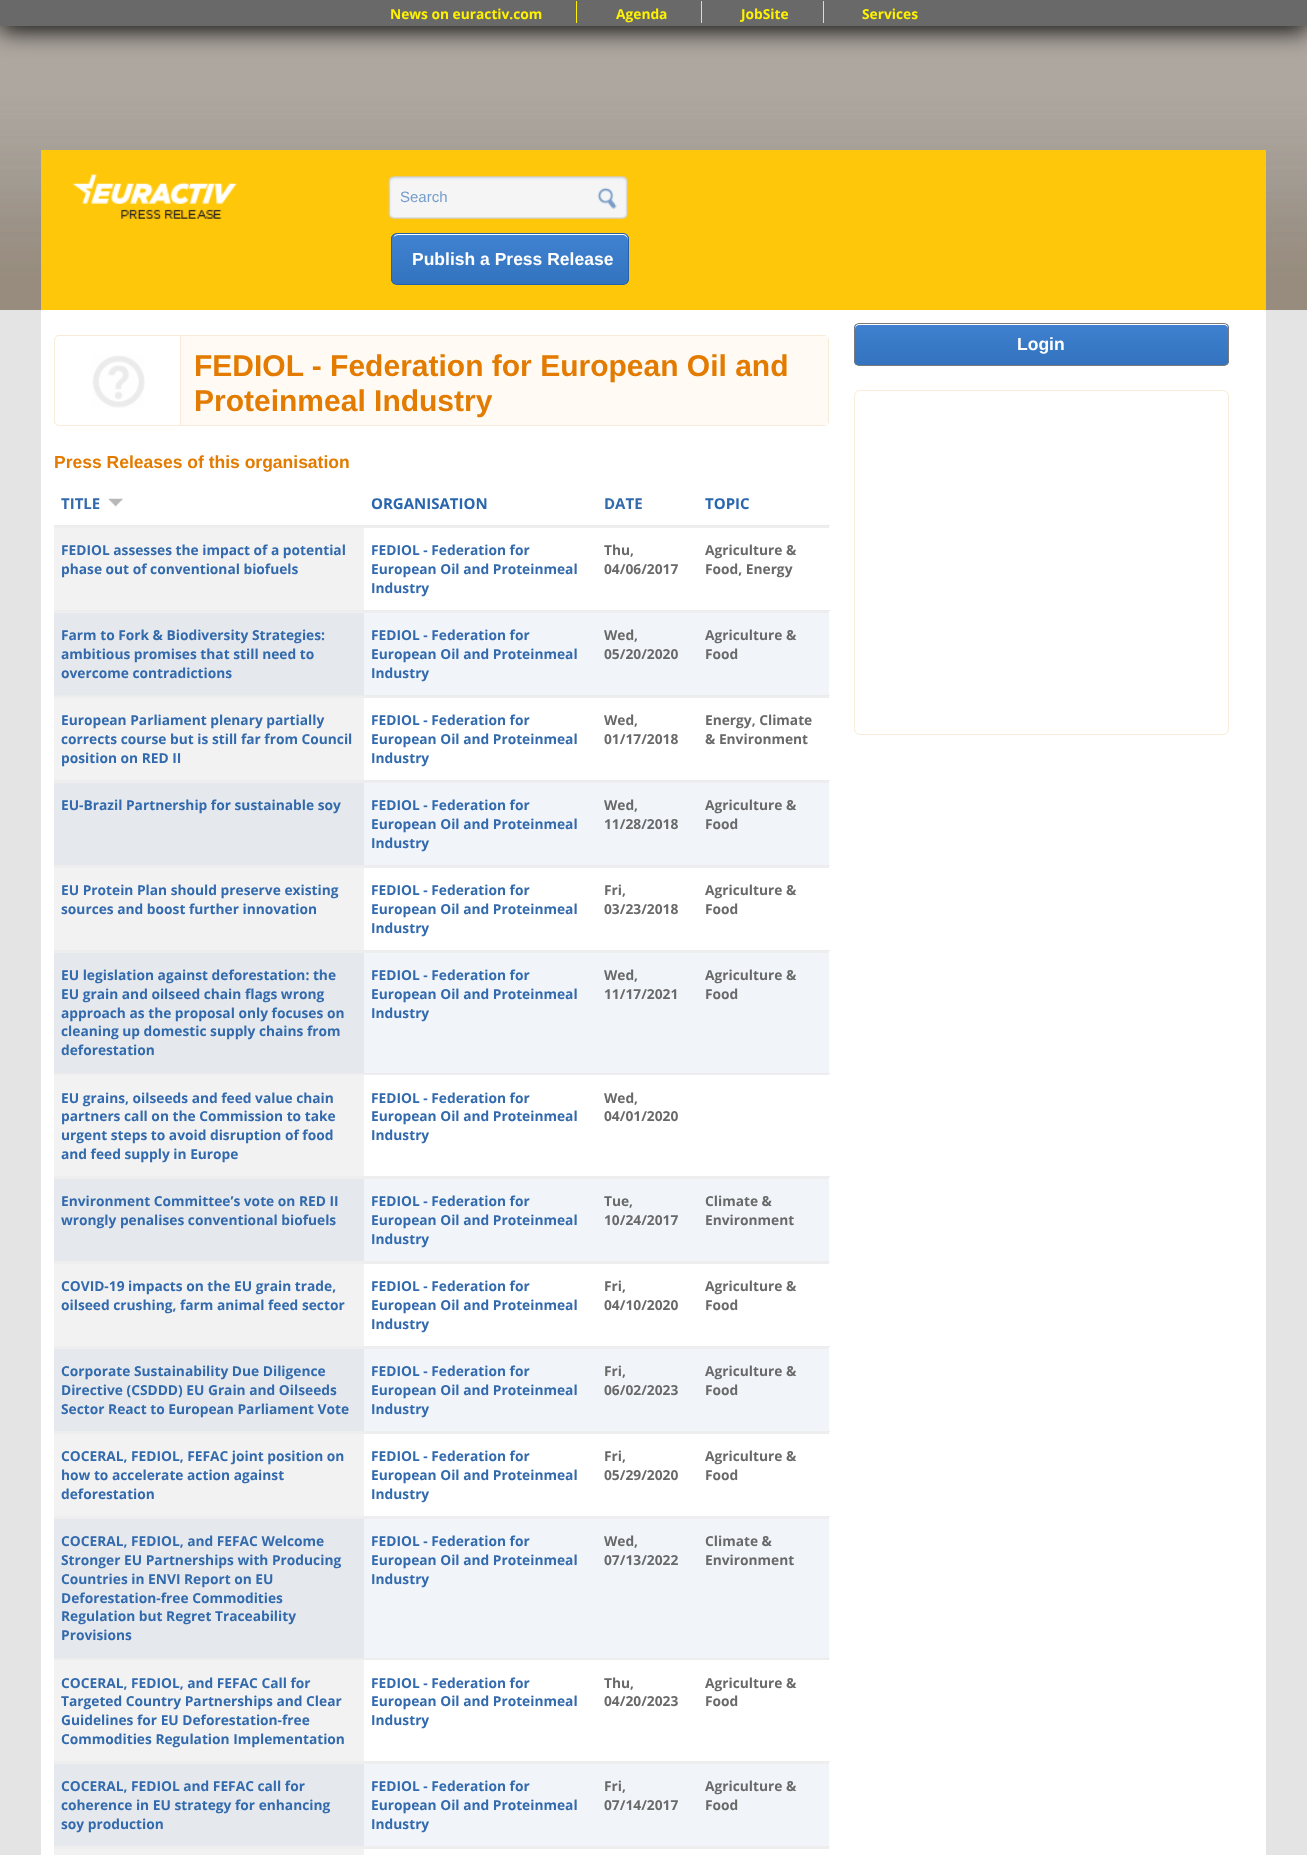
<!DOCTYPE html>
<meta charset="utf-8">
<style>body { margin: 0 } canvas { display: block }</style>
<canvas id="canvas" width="1307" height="1855"></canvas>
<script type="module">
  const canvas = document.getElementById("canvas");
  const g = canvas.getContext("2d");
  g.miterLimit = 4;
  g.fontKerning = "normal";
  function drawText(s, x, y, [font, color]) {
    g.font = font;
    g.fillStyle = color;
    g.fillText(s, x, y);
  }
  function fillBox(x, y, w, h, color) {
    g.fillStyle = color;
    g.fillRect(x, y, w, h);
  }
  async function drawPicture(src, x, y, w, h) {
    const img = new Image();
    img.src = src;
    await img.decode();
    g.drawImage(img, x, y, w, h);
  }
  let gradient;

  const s1 = ["bold 13.75px Open Sans", "#FEF200"];
  const s2 = ["15px Liberation Sans", "#749CCB"];
  const s3 = ["bold 17.5px Liberation Sans", "#FFFFFF"];
  const s4 = ["bold 30px Liberation Sans", "#E27B00"];
  const s5 = ["bold 17.5px Liberation Sans", "#E27B00"];
  const s6 = ["bold 15px Open Sans", "#326AAD"];
  const s7 = ["bold 15px Open Sans", "#2966AE"];
  const s8 = ["bold 13.75px Open Sans", "#326AAD"];
  const s9 = ["bold 13.75px Open Sans", "#696969"];

  fillBox(0, 0, 1307, 1855, "#FFFFFF");
  await drawPicture("pic1.png", 0, 26, 1307, 284);
  g.fillStyle = "#000000";
  g.filter = "blur(12.5px)";
  g.beginPath();
  g.rect(0, 4, 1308, 26);
  g.fill();
  g.filter = "none";
  fillBox(0, 0, 1307, 26, "#696969");
  drawText("News on euractiv.com", 390, 19, s1);
  fillBox(576, 1, 1, 22, "#FEF200");
  drawText("Agenda", 616, 19, s1);
  fillBox(701, 1, 1, 22, "#FEF200");
  drawText("JobSite", 741, 19, s1);
  fillBox(823, 1, 1, 22, "#FEF200");
  drawText("Services", 862, 19, s1);
  fillBox(41, 150, 1225, 160, "#FFC709");
  await drawPicture("pic2.png", 72, 173, 165, 46);
  await drawPicture("pic3.png", 387, 176, 242, 43);
  drawText("Search", 400, 202, s2);
  await drawPicture("pic4.png", 597, 187, 20, 22);
  g.save();
  g.beginPath();
  g.roundRect(391, 233, 238, 52, 6);
  g.clip();
  gradient = g.createLinearGradient(510, 234, 510, 284);
  gradient.addColorStop(0, "#4083D2");
  gradient.addColorStop(1, "#3373BE");
  g.fillStyle = gradient;
  g.fillRect(391, 234, 238, 50);
  g.restore();
  g.fillStyle = "#FFFFFF";
  g.beginPath();
  g.moveTo(398, 235);
  g.lineTo(622, 235);
  g.bezierCurveTo(625, 235, 628, 237, 628, 240);
  g.lineTo(628, 239);
  g.bezierCurveTo(628, 236, 626, 234, 623, 234);
  g.lineTo(398, 234);
  g.bezierCurveTo(396, 234, 394, 235, 394, 237);
  g.bezierCurveTo(395, 236, 396, 235, 398, 235);
  g.closePath();
  g.fill();
  g.beginPath();
  g.roundRect(391.5, 233.5, 237, 51, 5.5);
  g.strokeStyle = "#2561A8";
  g.stroke();
  drawText("Publish a Press Release", 412, 265, s3);
  fillBox(0, 310, 1307, 1545, "#E4E4E4");
  fillBox(41, 310, 1225, 1545, "#FFFFFF");
  g.save();
  g.beginPath();
  g.roundRect(854, 323, 375, 43, 5);
  g.clip();
  gradient = g.createLinearGradient(1041, 324, 1041, 365);
  gradient.addColorStop(0, "#3F81D0");
  gradient.addColorStop(1, "#3373BE");
  g.fillStyle = gradient;
  g.fillRect(854, 324, 375, 41);
  g.restore();
  g.beginPath();
  g.moveTo(859, 325);
  g.lineTo(1224, 325);
  g.bezierCurveTo(1226, 325, 1228, 327, 1228, 329);
  g.bezierCurveTo(1228, 326, 1227, 324, 1224, 324);
  g.lineTo(859, 324);
  g.bezierCurveTo(856, 324, 855, 326, 855, 329);
  g.bezierCurveTo(855, 327, 857, 325, 859, 325);
  g.closePath();
  g.fill();
  g.beginPath();
  g.roundRect(854.5, 323.5, 374, 42, 4.5);
  g.strokeStyle = "#7A7A7A";
  g.stroke();
  drawText("Login", 1017, 350, s3);
  g.beginPath();
  g.roundRect(854.5, 390.5, 374, 344, 5.5);
  g.strokeStyle = "#F8EBD7";
  g.stroke();
  g.beginPath();
  g.roundRect(54.5, 335.5, 774, 90, 4.5);
  g.stroke();
  await drawPicture("pic5.png", 92, 355, 53, 53);
  fillBox(181, 336, 647, 89, "#FFFAF3");
  fillBox(180, 336, 1, 89, "#F8EBD7");
  drawText("FEDIOL - Federation for European Oil and", 194, 376, s4);
  drawText("Proteinmeal Industry", 194, 411, s4);
  drawText("Press Releases of this organisation", 54, 468, s5);
  drawText("TITLE", 61, 509, s6);
  await drawPicture("pic6.png", 108, 498, 15, 9);
  drawText("ORGANISATION", 371, 509, s7);
  drawText("DATE", 604, 509, s6);
  drawText("TOPIC", 705, 509, s7);
  fillBox(54, 526, 775, 2, "#EEEEEE");
  fillBox(54, 528, 310, 82, "#F2F2F2");
  drawText("FEDIOL assesses the impact of a potential", 61, 555, s8);
  drawText("phase out of conventional biofuels", 61, 574, s8);
  drawText("FEDIOL - Federation for", 371, 555, s8);
  drawText("European Oil and Proteinmeal", 371, 574, s8);
  drawText("Industry", 371, 593, s8);
  drawText("Thu,", 604, 555, s9);
  drawText("04/06/2017", 604, 574, s9);
  fillBox(54, 525, 776, 1, "#ECECEC");
  drawText("Agriculture &", 705, 555, s9);
  drawText("Food, Energy", 705, 574, s9);
  fillBox(54, 611, 775, 2, "#EEEEEE");
  fillBox(54, 613, 310, 82, "#E5E9ED");
  drawText("Farm to Fork & Biodiversity Strategies:", 61, 640, s8);
  drawText("ambitious promises that still need to", 61, 659, s8);
  drawText("overcome contradictions", 61, 678, s8);
  fillBox(364, 613, 465, 82, "#F1F5FA");
  drawText("FEDIOL - Federation for", 371, 640, s8);
  drawText("European Oil and Proteinmeal", 371, 659, s8);
  drawText("Industry", 371, 678, s8);
  drawText("Wed,", 604, 640, s9);
  drawText("05/20/2020", 604, 659, s9);
  fillBox(54, 610, 776, 1, "#ECECEC");
  drawText("Agriculture &", 705, 640, s9);
  drawText("Food", 705, 659, s9);
  fillBox(54, 696, 775, 2, "#EEEEEE");
  fillBox(54, 698, 310, 82, "#F2F2F2");
  drawText("European Parliament plenary partially", 61, 725, s8);
  drawText("corrects course but is still far from Council", 61, 744, s8);
  drawText("position on RED II", 61, 763, s8);
  drawText("FEDIOL - Federation for", 371, 725, s8);
  drawText("European Oil and Proteinmeal", 371, 744, s8);
  drawText("Industry", 371, 763, s8);
  drawText("Wed,", 604, 725, s9);
  drawText("01/17/2018", 604, 744, s9);
  fillBox(54, 695, 776, 1, "#ECECEC");
  drawText("Energy, Climate", 705, 725, s9);
  drawText("& Environment", 705, 744, s9);
  fillBox(54, 781, 775, 2, "#EEEEEE");
  fillBox(54, 783, 310, 82, "#E5E9ED");
  drawText("EU-Brazil Partnership for sustainable soy", 61, 810, s8);
  fillBox(364, 783, 465, 82, "#F1F5FA");
  drawText("FEDIOL - Federation for", 371, 810, s8);
  drawText("European Oil and Proteinmeal", 371, 829, s8);
  drawText("Industry", 371, 848, s8);
  drawText("Wed,", 604, 810, s9);
  drawText("11/28/2018", 604, 829, s9);
  fillBox(54, 780, 776, 1, "#ECECEC");
  drawText("Agriculture &", 705, 810, s9);
  drawText("Food", 705, 829, s9);
  fillBox(54, 866, 775, 2, "#EEEEEE");
  fillBox(54, 868, 310, 82, "#F2F2F2");
  drawText("EU Protein Plan should preserve existing", 61, 895, s8);
  drawText("sources and boost further innovation", 61, 914, s8);
  drawText("FEDIOL - Federation for", 371, 895, s8);
  drawText("European Oil and Proteinmeal", 371, 914, s8);
  drawText("Industry", 371, 933, s8);
  drawText("Fri,", 604, 895, s9);
  drawText("03/23/2018", 604, 914, s9);
  fillBox(54, 865, 776, 1, "#ECECEC");
  drawText("Agriculture &", 705, 895, s9);
  drawText("Food", 705, 914, s9);
  fillBox(54, 951, 775, 2, "#EEEEEE");
  fillBox(54, 953, 310, 120, "#E5E9ED");
  drawText("EU legislation against deforestation: the", 61, 980, s8);
  drawText("EU grain and oilseed chain flags wrong", 61, 999, s8);
  drawText("approach as the proposal only focuses on", 61, 1018, s8);
  drawText("cleaning up domestic supply chains from", 61, 1036, s8);
  drawText("deforestation", 61, 1055, s8);
  fillBox(364, 953, 465, 120, "#F1F5FA");
  drawText("FEDIOL - Federation for", 371, 980, s8);
  drawText("European Oil and Proteinmeal", 371, 999, s8);
  drawText("Industry", 371, 1018, s8);
  drawText("Wed,", 604, 980, s9);
  drawText("11/17/2021", 604, 999, s9);
  fillBox(54, 950, 776, 1, "#ECECEC");
  drawText("Agriculture &", 705, 980, s9);
  drawText("Food", 705, 999, s9);
  fillBox(54, 1074, 775, 445, "#EEEEEE");
  fillBox(54, 1073, 776, 1, "#ECECEC");
  fillBox(54, 1075, 310, 101, "#F2F2F2");
  drawText("EU grains, oilseeds and feed value chain", 61, 1103, s8);
  drawText("partners call on the Commission to take", 61, 1121, s8);
  drawText("urgent steps to avoid disruption of food", 61, 1140, s8);
  drawText("and feed supply in Europe", 61, 1159, s8);
  fillBox(364, 1075, 465, 101, "#FFFFFF");
  drawText("FEDIOL - Federation for", 371, 1103, s8);
  drawText("European Oil and Proteinmeal", 371, 1121, s8);
  drawText("Industry", 371, 1140, s8);
  drawText("Wed,", 604, 1103, s9);
  drawText("04/01/2020", 604, 1121, s9);
  fillBox(54, 1179, 310, 82, "#E5E9ED");
  drawText("Environment Committee’s vote on RED II", 61, 1206, s8);
  drawText("wrongly penalises conventional biofuels", 61, 1225, s8);
  fillBox(364, 1179, 465, 82, "#F1F5FA");
  drawText("FEDIOL - Federation for", 371, 1206, s8);
  drawText("European Oil and Proteinmeal", 371, 1225, s8);
  drawText("Industry", 371, 1244, s8);
  drawText("Tue,", 604, 1206, s9);
  drawText("10/24/2017", 604, 1225, s9);
  fillBox(829, 1176, 1, 1, "#ECECEC");
  drawText("Climate &", 705, 1206, s9);
  drawText("Environment", 705, 1225, s9);
  fillBox(54, 1264, 310, 82, "#F2F2F2");
  drawText("COVID-19 impacts on the EU grain trade,", 61, 1291, s8);
  drawText("oilseed crushing, farm animal feed sector", 61, 1310, s8);
  fillBox(364, 1264, 465, 82, "#FFFFFF");
  drawText("FEDIOL - Federation for", 371, 1291, s8);
  drawText("European Oil and Proteinmeal", 371, 1310, s8);
  drawText("Industry", 371, 1329, s8);
  drawText("Fri,", 604, 1291, s9);
  drawText("04/10/2020", 604, 1310, s9);
  fillBox(829, 1261, 1, 1, "#ECECEC");
  drawText("Agriculture &", 705, 1291, s9);
  drawText("Food", 705, 1310, s9);
  fillBox(54, 1349, 310, 82, "#E5E9ED");
  drawText("Corporate Sustainability Due Diligence", 61, 1376, s8);
  drawText("Directive (CSDDD) EU Grain and Oilseeds", 61, 1395, s8);
  drawText("Sector React to European Parliament Vote", 61, 1414, s8);
  fillBox(364, 1349, 465, 82, "#F1F5FA");
  drawText("FEDIOL - Federation for", 371, 1376, s8);
  drawText("European Oil and Proteinmeal", 371, 1395, s8);
  drawText("Industry", 371, 1414, s8);
  drawText("Fri,", 604, 1376, s9);
  drawText("06/02/2023", 604, 1395, s9);
  fillBox(829, 1346, 1, 1, "#ECECEC");
  drawText("Agriculture &", 705, 1376, s9);
  drawText("Food", 705, 1395, s9);
  fillBox(54, 1434, 310, 82, "#F2F2F2");
  drawText("COCERAL, FEDIOL, FEFAC joint position on", 61, 1461, s8);
  drawText("how to accelerate action against", 61, 1480, s8);
  drawText("deforestation", 61, 1499, s8);
  fillBox(364, 1434, 465, 82, "#FFFFFF");
  drawText("FEDIOL - Federation for", 371, 1461, s8);
  drawText("European Oil and Proteinmeal", 371, 1480, s8);
  drawText("Industry", 371, 1499, s8);
  drawText("Fri,", 604, 1461, s9);
  drawText("05/29/2020", 604, 1480, s9);
  fillBox(829, 1431, 1, 1, "#ECECEC");
  drawText("Agriculture &", 705, 1461, s9);
  drawText("Food", 705, 1480, s9);
  fillBox(54, 1519, 310, 139, "#E5E9ED");
  drawText("COCERAL, FEDIOL, and FEFAC Welcome", 61, 1546, s8);
  drawText("Stronger EU Partnerships with Producing", 61, 1565, s8);
  drawText("Countries in ENVI Report on EU", 61, 1584, s8);
  drawText("Deforestation-free Commodities", 61, 1603, s8);
  drawText("Regulation but Regret Traceability", 61, 1621, s8);
  drawText("Provisions", 61, 1640, s8);
  fillBox(364, 1519, 465, 139, "#F1F5FA");
  drawText("FEDIOL - Federation for", 371, 1546, s8);
  drawText("European Oil and Proteinmeal", 371, 1565, s8);
  drawText("Industry", 371, 1584, s8);
  drawText("Wed,", 604, 1546, s9);
  drawText("07/13/2022", 604, 1565, s9);
  fillBox(829, 1516, 1, 1, "#ECECEC");
  drawText("Climate &", 705, 1546, s9);
  drawText("Environment", 705, 1565, s9);
  fillBox(54, 1659, 775, 190, "#EEEEEE");
  fillBox(54, 1660, 310, 101, "#F2F2F2");
  drawText("COCERAL, FEDIOL, and FEFAC Call for", 61, 1688, s8);
  drawText("Targeted Country Partnerships and Clear", 61, 1706, s8);
  drawText("Guidelines for EU Deforestation-free", 61, 1725, s8);
  drawText("Commodities Regulation Implementation", 61, 1744, s8);
  fillBox(364, 1660, 465, 101, "#FFFFFF");
  drawText("FEDIOL - Federation for", 371, 1688, s8);
  drawText("European Oil and Proteinmeal", 371, 1706, s8);
  drawText("Industry", 371, 1725, s8);
  drawText("Thu,", 604, 1688, s9);
  drawText("04/20/2023", 604, 1706, s9);
  fillBox(54, 1658, 776, 1, "#ECECEC");
  drawText("Agriculture &", 705, 1688, s9);
  drawText("Food", 705, 1706, s9);
  fillBox(54, 1764, 310, 82, "#E5E9ED");
  drawText("COCERAL, FEDIOL and FEFAC call for", 61, 1791, s8);
  drawText("coherence in EU strategy for enhancing", 61, 1810, s8);
  drawText("soy production", 61, 1829, s8);
  fillBox(364, 1764, 465, 82, "#F1F5FA");
  drawText("FEDIOL - Federation for", 371, 1791, s8);
  drawText("European Oil and Proteinmeal", 371, 1810, s8);
  drawText("Industry", 371, 1829, s8);
  drawText("Fri,", 604, 1791, s9);
  drawText("07/14/2017", 604, 1810, s9);
  fillBox(829, 1761, 1, 1, "#ECECEC");
  drawText("Agriculture &", 705, 1791, s9);
  drawText("Food", 705, 1810, s9);
  fillBox(829, 1846, 1, 1, "#ECECEC");
  fillBox(54, 1849, 310, 6, "#F2F2F2");
</script>
